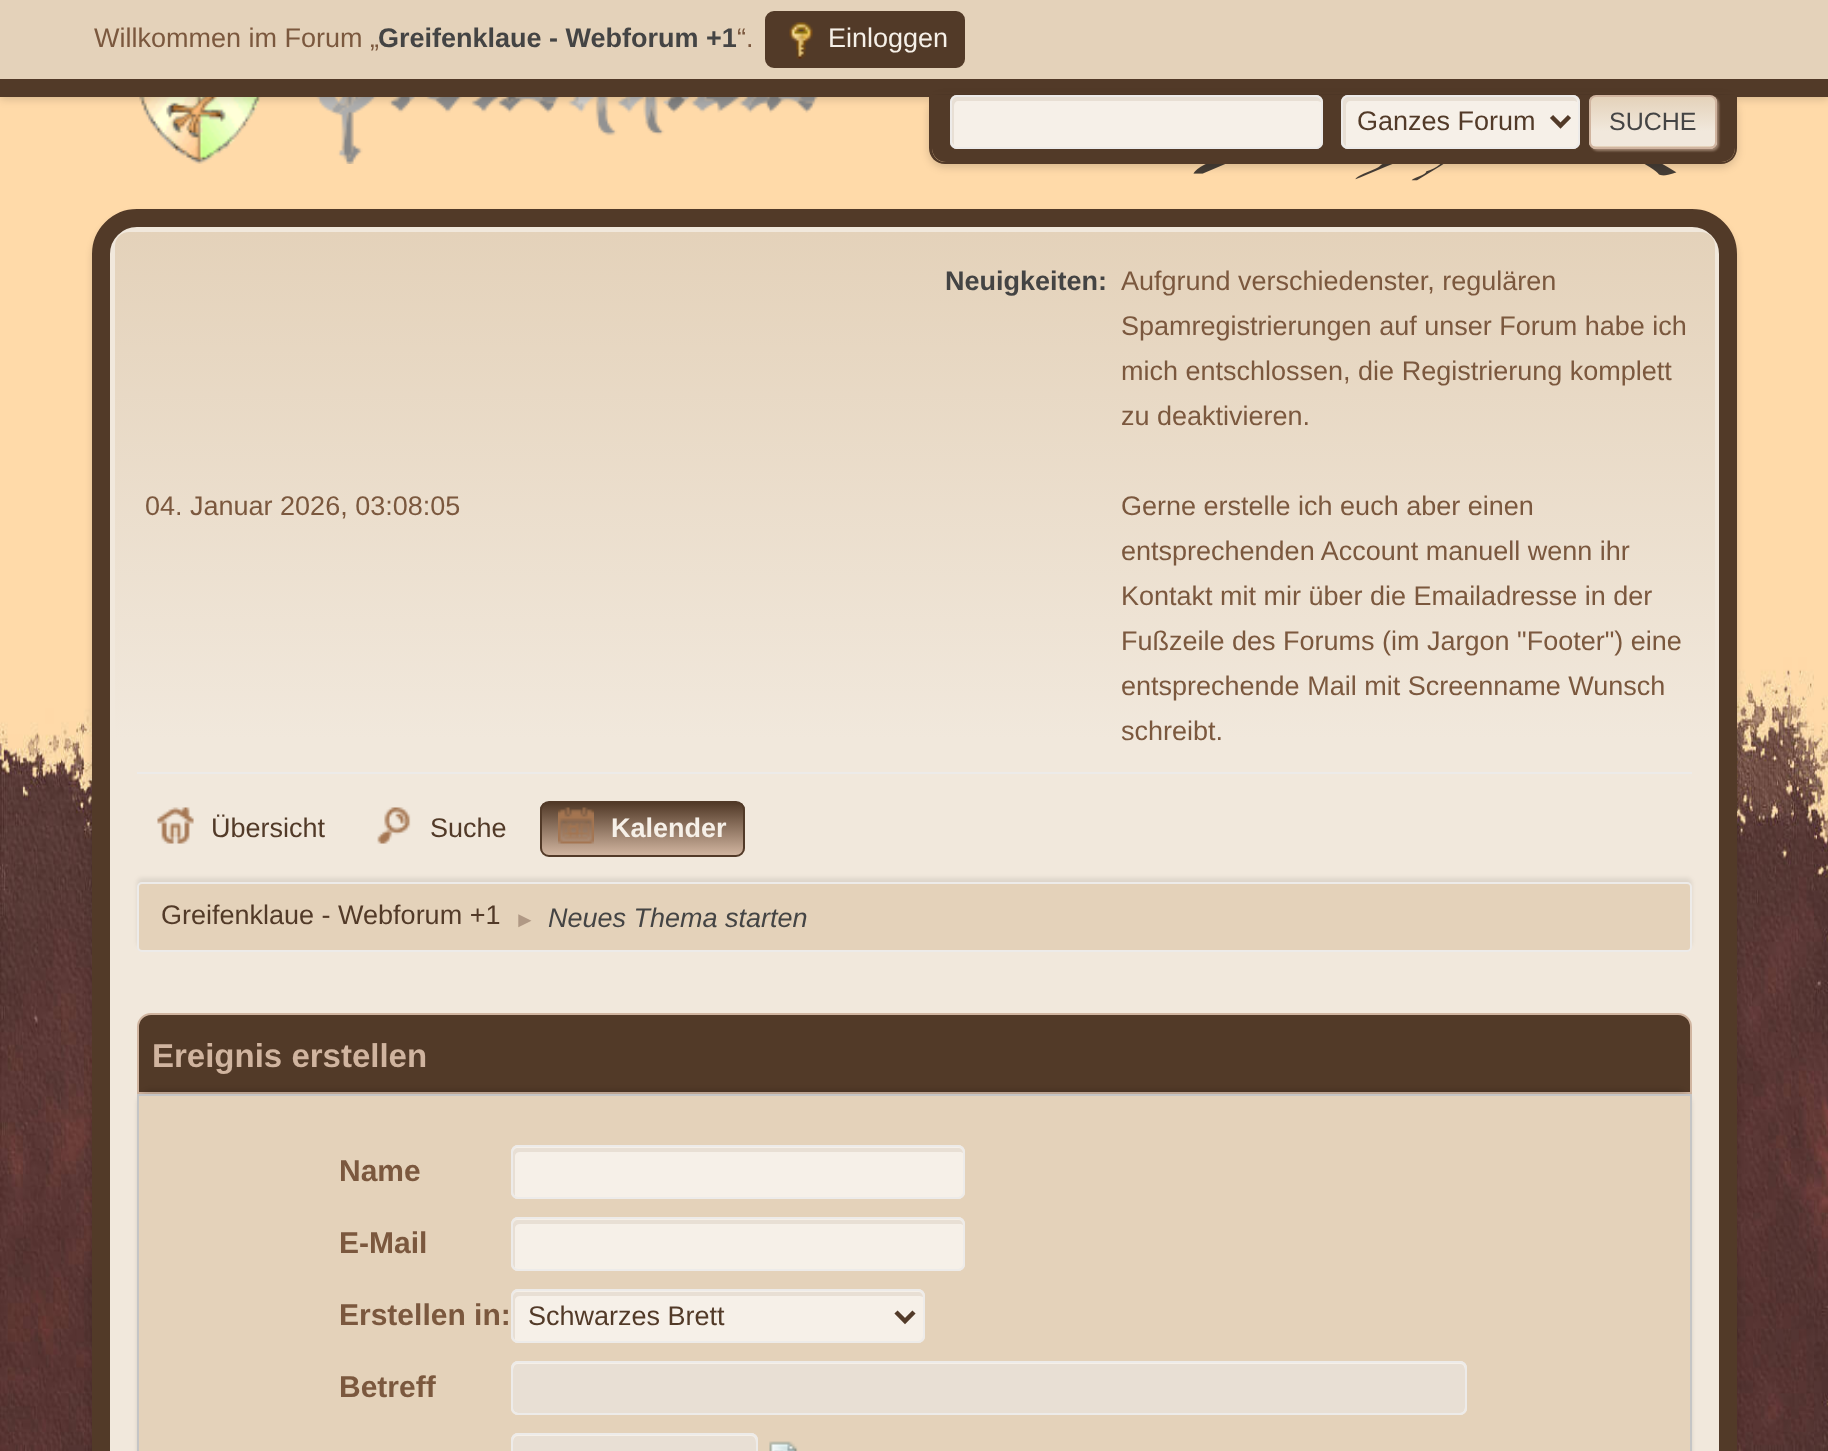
<!DOCTYPE html>
<meta charset="utf-8">
<style>body { margin: 0 } canvas { display: block }</style>
<canvas id="canvas" width="1828" height="1451"></canvas>
<script type="module">
  const canvas = document.getElementById("canvas");
  const g = canvas.getContext("2d");
  g.miterLimit = 4;
  g.fontKerning = "normal";
  function drawText(s, x, y, [font, color]) {
    g.font = font;
    g.fillStyle = color;
    g.fillText(s, x, y);
  }
  function fillBox(x, y, w, h, color) {
    g.fillStyle = color;
    g.fillRect(x, y, w, h);
  }
  function fillRounded(x, y, w, h, r, color) {
    g.fillStyle = color;
    g.beginPath();
    g.roundRect(x, y, w, h, r);
    g.fill();
  }
  async function drawPicture(src, x, y, w, h) {
    const img = new Image();
    img.src = src;
    await img.decode();
    g.drawImage(img, x, y, w, h);
  }
  let gradient;

  const s1 = ["27px Liberation Sans", "#7B583E"];
  const s2 = ["bold 27px Liberation Sans", "#444444"];
  const s3 = ["27px Liberation Sans", "#F6F0E8"];
  const s4 = ["27px Liberation Sans", "#523A28"];
  const s5 = ["25px Liberation Sans", "#444444"];
  const s6 = ["bold 27px Liberation Sans", "#F6F0E8"];
  const s7 = ["22px Liberation Sans", "#B09985"];
  const s8 = ["italic 27px Liberation Sans", "#444444"];
  const s9 = ["bold 33px Liberation Sans", "#D0B49F"];
  const s10 = ["bold 30px Liberation Sans", "#7B583E"];

  fillBox(0, 0, 1828, 1451, "#FFFFFF");
  await drawPicture("pic1.png", 0, 97, 1828, 1354);
  await drawPicture("pic3.png", 139, 97, 679, 67);
  g.fillStyle = "rgba(0, 0, 0, 0.16)";
  g.filter = "blur(4.5px)";
  g.beginPath();
  g.rect(0, 2, 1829, 97);
  g.fill();
  g.filter = "none";
  fillBox(0, 0, 1828, 79, "#E4D2BA");
  fillBox(0, 79, 1828, 18, "#523A28");
  drawText("Willkommen im Forum „", 94, 47, s1);
  drawText("Greifenklaue - Webforum +1", 378, 47, s2);
  drawText("“.", 737, 47, s1);
  g.fillStyle = "#523A28";
  g.beginPath();
  g.roundRect(766, 12, 198, 55, 8);
  g.fill();
  g.strokeStyle = "#523A28";
  g.lineWidth = 2;
  g.stroke();
  await drawPicture("pic2.png", 789, 22, 24, 37);
  drawText("Einloggen", 828, 47, s3);
  await drawPicture("pic4.png", 1193, 164, 484, 17);
  g.fillStyle = "rgba(0, 0, 0, 0.16)";
  g.filter = "blur(4.5px)";
  g.beginPath();
  g.roundRect(929, 97, 808, 70, 16);
  g.fill();
  g.filter = "none";
  g.fillStyle = "#523A28";
  g.beginPath();
  g.moveTo(929, 92);
  g.lineTo(929, 149);
  g.lineTo(929, 94);
  g.lineTo(1737, 94);
  g.lineTo(1737, 92);
  g.closePath();
  g.fill();
  g.beginPath();
  g.roundRect(932, 95, 803, 67, [0, 0, 14, 14]);
  g.fill();
  g.beginPath();
  g.moveTo(929, 94);
  g.lineTo(1737, 94);
  g.lineTo(1737, 148);
  g.bezierCurveTo(1737, 157, 1730, 164, 1721, 164);
  g.lineTo(945, 164);
  g.bezierCurveTo(936, 164, 929, 157, 929, 148);
  g.closePath();
  g.moveTo(932, 94);
  g.lineTo(1735, 94);
  g.lineTo(1735, 148);
  g.bezierCurveTo(1735, 156, 1729, 162, 1721, 162);
  g.lineTo(945, 162);
  g.bezierCurveTo(938, 162, 932, 156, 932, 148);
  g.closePath();
  g.fill("evenodd");
  fillRounded(950, 95, 373, 54, 7, "#F6F0E8");
  g.fillStyle = "#E8DFD4";
  g.beginPath();
  g.moveTo(958, 101);
  g.lineTo(1318, 101);
  g.lineTo(1321, 102);
  g.bezierCurveTo(1321, 99, 1319, 97, 1316, 97);
  g.lineTo(957, 97);
  g.bezierCurveTo(954, 97, 952, 99, 952, 102);
  g.lineTo(952, 141);
  g.bezierCurveTo(952, 143, 953, 144, 954, 145);
  g.lineTo(954, 106);
  g.bezierCurveTo(954, 103, 956, 101, 958, 101);
  g.closePath();
  g.fill();
  g.beginPath();
  g.roundRect(951, 96, 371, 52, 6);
  g.strokeStyle = "#EDEBE9";
  g.stroke();
  fillRounded(1341, 95, 239, 54, 7, "#F6F0E8");
  g.fillStyle = "#E8DFD4";
  g.beginPath();
  g.moveTo(1350, 101);
  g.lineTo(1575, 101);
  g.lineTo(1577, 102);
  g.bezierCurveTo(1577, 99, 1575, 97, 1572, 97);
  g.lineTo(1348, 97);
  g.bezierCurveTo(1345, 97, 1343, 99, 1343, 102);
  g.lineTo(1343, 141);
  g.bezierCurveTo(1343, 143, 1344, 145, 1346, 146);
  g.lineTo(1346, 106);
  g.bezierCurveTo(1346, 103, 1348, 101, 1350, 101);
  g.closePath();
  g.fill();
  g.beginPath();
  g.roundRect(1342, 96, 237, 52, 6);
  g.stroke();
  g.beginPath();
  g.moveTo(1551.5, 116.5);
  g.lineTo(1560.5, 125.5);
  g.lineTo(1569.5, 116.5);
  g.strokeStyle = "#523A28";
  g.lineWidth = 4.5;
  g.stroke();
  drawText("Ganzes Forum", 1357, 130, s4);
  g.fillStyle = "rgba(208, 180, 159, 0.57)";
  g.filter = "blur(1px)";
  g.beginPath();
  g.roundRect(1591, 97, 128, 54, 7);
  g.fill();
  g.filter = "none";
  g.save();
  g.beginPath();
  g.roundRect(1589, 95, 128, 54, 7);
  g.clip();
  gradient = g.createLinearGradient(1653, 97, 1653, 146);
  gradient.addColorStop(0, "#E4D2BA");
  gradient.addColorStop(0.7, "#F1E8DC");
  g.fillStyle = gradient;
  g.fillRect(1589, 97, 128, 49);
  gradient = g.createLinearGradient(1653, 146, 1653, 196);
  gradient.addColorStop(0, "#E4D2BA");
  gradient.addColorStop(0.7, "#F1E8DC");
  g.fillStyle = gradient;
  g.fillRect(1589, 146, 128, 3);
  g.restore();
  g.beginPath();
  g.roundRect(1590, 96, 126, 52, 6);
  g.strokeStyle = "#D0B49F";
  g.lineWidth = 2;
  g.stroke();
  drawText("SUCHE", 1609, 130, s5);
  g.fillStyle = "rgba(0, 0, 0, 0.14)";
  g.filter = "blur(3.5px)";
  g.beginPath();
  g.roundRect(92, 214, 1645, 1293, 45);
  g.fill();
  g.filter = "none";
  g.fillStyle = "#F1E8DC";
  g.beginPath();
  g.roundRect(101, 218, 1627, 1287, 36);
  g.fill();
  g.strokeStyle = "#523A28";
  g.lineWidth = 18;
  g.stroke();
  gradient = g.createLinearGradient(915, 232, 915, 956);
  gradient.addColorStop(0, "#E4D2BA");
  gradient.addColorStop(0.7, "#F1E8DC");
  g.fillStyle = gradient;
  g.beginPath();
  g.roundRect(115, 232, 1600, 724, [14, 14, 0, 0]);
  g.fill();
  fillBox(137, 772, 1555, 2, "#EDEBE9");
  drawText("04. Januar 2026, 03:08:05", 145, 515, s1);
  drawText("Neuigkeiten:", 945, 290, s2);
  drawText("Aufgrund verschiedenster, regulären", 1121, 290, s1);
  drawText("Spamregistrierungen auf unser Forum habe ich", 1121, 335, s1);
  drawText("mich entschlossen, die Registrierung komplett", 1121, 380, s1);
  drawText("zu deaktivieren.", 1121, 425, s1);
  drawText("Gerne erstelle ich euch aber einen", 1121, 515, s1);
  drawText("entsprechenden Account manuell wenn ihr", 1121, 560, s1);
  drawText("Kontakt mit mir über die Emailadresse in der", 1121, 605, s1);
  drawText("Fußzeile des Forums (im Jargon \"Footer\") eine", 1121, 650, s1);
  drawText("entsprechende Mail mit Screenname Wunsch", 1121, 695, s1);
  drawText("schreibt.", 1121, 740, s1);
  await drawPicture("pic5.png", 157, 807, 37, 37);
  drawText("Übersicht", 211, 837, s4);
  await drawPicture("pic6.png", 377, 807, 34, 37);
  drawText("Suche", 430, 837, s4);
  g.save();
  g.beginPath();
  g.roundRect(540, 801, 205, 56, 9);
  g.clip();
  gradient = g.createLinearGradient(642, 803, 642, 855);
  gradient.addColorStop(0, "#523A28");
  gradient.addColorStop(1, "#D0B49F");
  g.fillStyle = gradient;
  g.fillRect(540, 803, 205, 52);
  g.restore();
  g.beginPath();
  g.roundRect(541, 802, 203, 54, 8);
  g.lineWidth = 2;
  g.stroke();
  await drawPicture("pic7.png", 558, 807, 36, 37);
  drawText("Kalender", 611, 837, s6);
  g.fillStyle = "rgba(0, 0, 0, 0.08)";
  g.filter = "blur(2px)";
  g.beginPath();
  g.roundRect(137, 878, 1555, 69, 5);
  g.fill();
  g.filter = "none";
  g.fillStyle = "#E4D2BA";
  g.beginPath();
  g.roundRect(138, 883, 1553, 68, 4);
  g.fill();
  g.strokeStyle = "#EDEBE9";
  g.stroke();
  drawText("Greifenklaue - Webforum +1", 161, 924, s4);
  drawText("►", 514, 927, s7);
  drawText("Neues Thema starten", 548, 927, s8);
  g.fillStyle = "#523A28";
  g.beginPath();
  g.roundRect(138, 1014, 1553, 79, [13, 13, 0, 0]);
  g.fill();
  g.strokeStyle = "#D0B49F";
  g.stroke();
  drawText("Ereignis erstellen", 152, 1067, s9);
  g.fillStyle = "rgba(0, 0, 0, 0.1)";
  g.filter = "blur(2px)";
  g.beginPath();
  g.roundRect(137, 1089, 1555, 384, 16);
  g.fill();
  g.filter = "none";
  g.fillStyle = "#E4D2BA";
  g.beginPath();
  g.rect(138, 1095, 1553, 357);
  g.fill();
  g.strokeStyle = "#C5C5C5";
  g.stroke();
  drawText("Name", 339, 1181, s10);
  fillRounded(511, 1145, 454, 54, 7, "#F6F0E8");
  g.fillStyle = "#E8DFD4";
  g.beginPath();
  g.moveTo(520, 1152);
  g.lineTo(961, 1152);
  g.lineTo(963, 1153);
  g.bezierCurveTo(963, 1150, 961, 1148, 958, 1148);
  g.lineTo(518, 1148);
  g.bezierCurveTo(515, 1148, 513, 1150, 513, 1153);
  g.lineTo(513, 1192);
  g.bezierCurveTo(513, 1194, 514, 1195, 515, 1196);
  g.lineTo(515, 1156);
  g.bezierCurveTo(515, 1154, 517, 1152, 520, 1152);
  g.closePath();
  g.fill();
  g.beginPath();
  g.roundRect(512, 1146, 452, 52, 6);
  g.strokeStyle = "#EDEBE9";
  g.stroke();
  drawText("E-Mail", 339, 1253, s10);
  fillRounded(511, 1217, 454, 54, 7, "#F6F0E8");
  g.fillStyle = "#E8DFD4";
  g.beginPath();
  g.moveTo(520, 1224);
  g.lineTo(961, 1224);
  g.lineTo(963, 1225);
  g.bezierCurveTo(963, 1222, 961, 1220, 958, 1220);
  g.lineTo(518, 1220);
  g.bezierCurveTo(515, 1220, 513, 1222, 513, 1225);
  g.lineTo(513, 1264);
  g.bezierCurveTo(513, 1266, 514, 1267, 515, 1268);
  g.lineTo(515, 1228);
  g.bezierCurveTo(515, 1226, 517, 1224, 520, 1224);
  g.closePath();
  g.fill();
  g.beginPath();
  g.roundRect(512, 1218, 452, 52, 6);
  g.stroke();
  drawText("Erstellen in:", 339, 1325, s10);
  fillRounded(511, 1289, 414, 54, 7, "#F6F0E8");
  g.fillStyle = "#E8DFD4";
  g.beginPath();
  g.moveTo(520, 1296);
  g.lineTo(920, 1296);
  g.lineTo(923, 1297);
  g.bezierCurveTo(923, 1294, 921, 1292, 918, 1292);
  g.lineTo(518, 1292);
  g.bezierCurveTo(515, 1292, 513, 1294, 513, 1297);
  g.lineTo(513, 1336);
  g.bezierCurveTo(513, 1338, 514, 1339, 515, 1340);
  g.lineTo(515, 1300);
  g.bezierCurveTo(515, 1298, 517, 1296, 520, 1296);
  g.closePath();
  g.fill();
  g.beginPath();
  g.roundRect(512, 1290, 412, 52, 6);
  g.stroke();
  g.beginPath();
  g.moveTo(896, 1312);
  g.lineTo(905, 1321);
  g.lineTo(914, 1312);
  g.strokeStyle = "#523A28";
  g.lineWidth = 4.5;
  g.stroke();
  drawText("Schwarzes Brett", 528, 1325, s4);
  drawText("Betreff", 339, 1397, s10);
  fillRounded(511, 1361, 956, 54, 7, "#F6F0E8");
  g.fillStyle = "#E8DFD4";
  g.beginPath();
  g.moveTo(518, 1364);
  g.bezierCurveTo(512, 1364, 513, 1372, 513, 1376);
  g.lineTo(513, 1402);
  g.bezierCurveTo(513, 1405, 512, 1410, 515, 1412);
  g.lineTo(518, 1413);
  g.lineTo(1461, 1413);
  g.bezierCurveTo(1466, 1412, 1465, 1405, 1465, 1402);
  g.lineTo(1465, 1376);
  g.bezierCurveTo(1465, 1372, 1466, 1364, 1460, 1364);
  g.closePath();
  g.fill();
  g.beginPath();
  g.roundRect(512, 1362, 954, 52, 6);
  g.strokeStyle = "#EDEBE9";
  g.lineWidth = 2;
  g.stroke();
  fillRounded(511, 1433, 247, 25, 7, "#F6F0E8");
  g.fillStyle = "#E8DFD4";
  g.beginPath();
  g.moveTo(518, 1436);
  g.bezierCurveTo(512, 1436, 513, 1444, 513, 1448);
  g.lineTo(513, 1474);
  g.bezierCurveTo(513, 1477, 512, 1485, 518, 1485);
  g.lineTo(751, 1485);
  g.bezierCurveTo(757, 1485, 756, 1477, 756, 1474);
  g.lineTo(756, 1448);
  g.bezierCurveTo(756, 1444, 757, 1436, 751, 1436);
  g.closePath();
  g.fill();
  g.beginPath();
  g.roundRect(512, 1434, 245, 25, 6);
  g.stroke();
  await drawPicture("pic8.png", 769, 1441, 29, 10);
</script>
